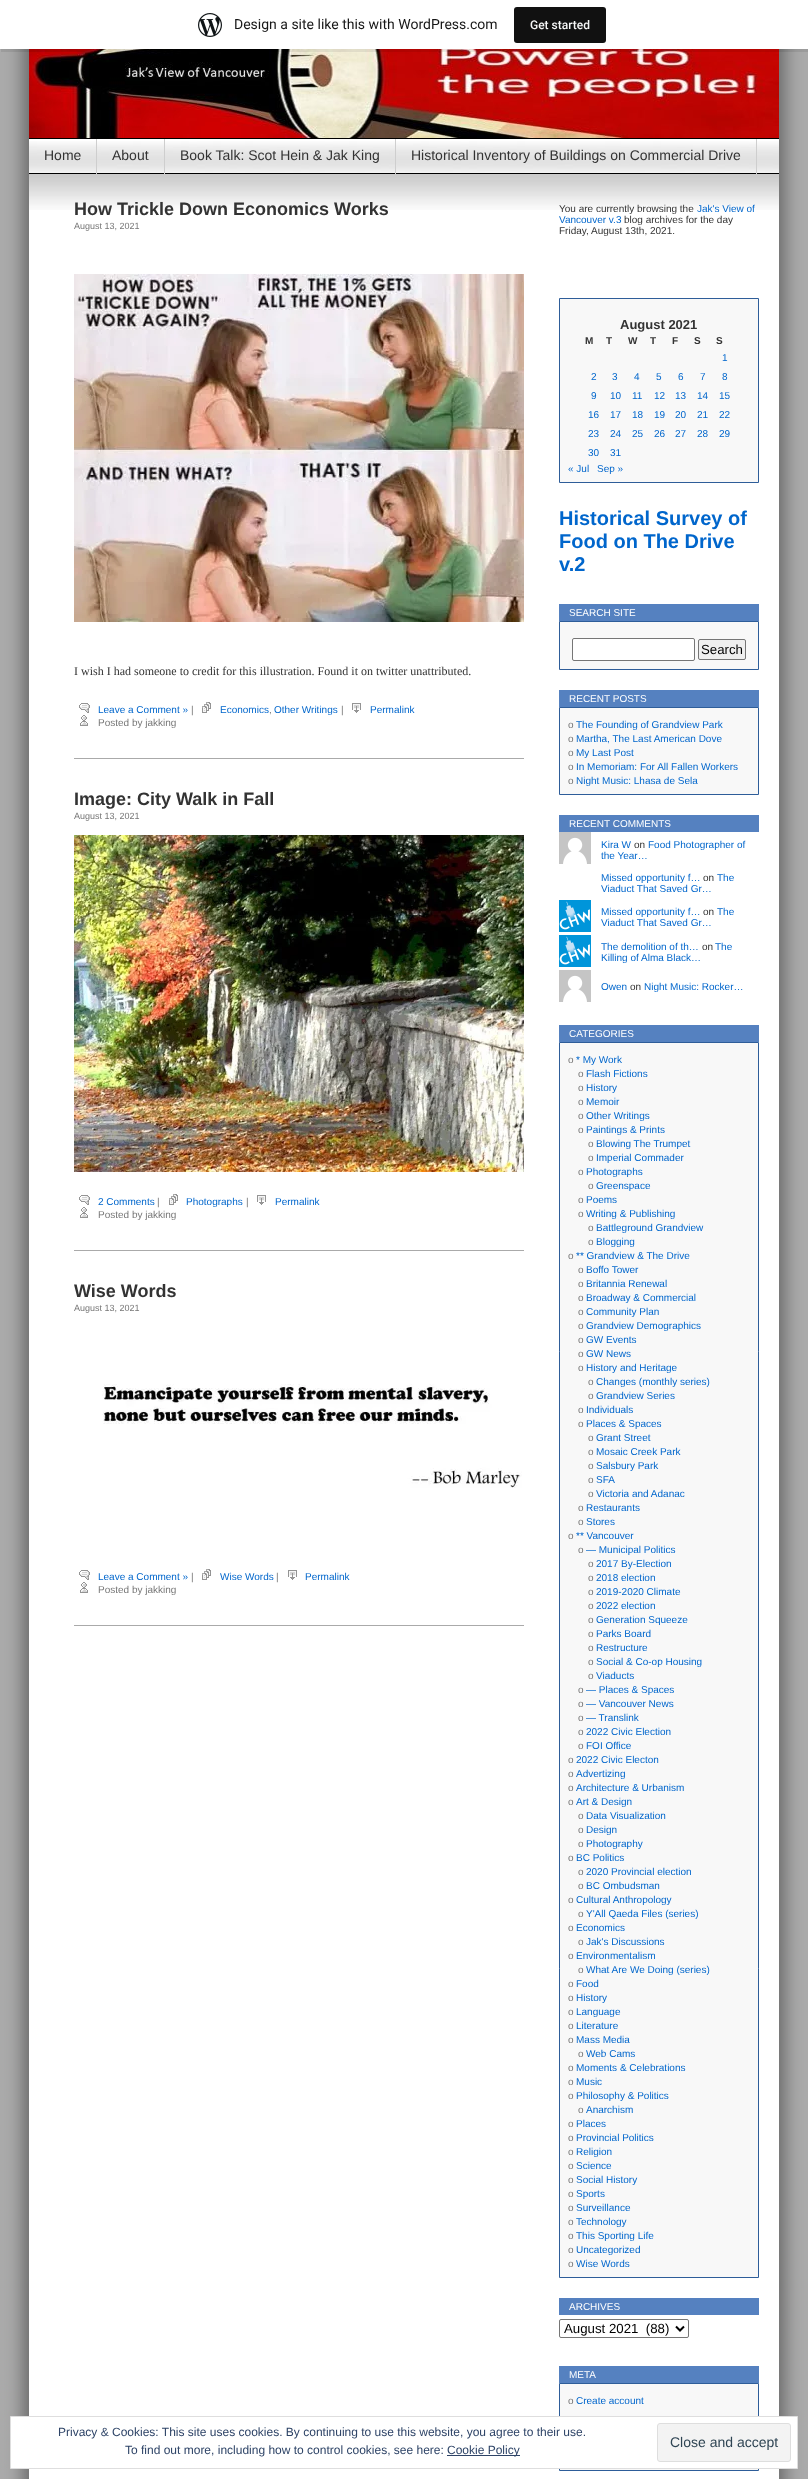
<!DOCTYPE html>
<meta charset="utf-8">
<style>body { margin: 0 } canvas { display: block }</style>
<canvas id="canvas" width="808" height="2479"></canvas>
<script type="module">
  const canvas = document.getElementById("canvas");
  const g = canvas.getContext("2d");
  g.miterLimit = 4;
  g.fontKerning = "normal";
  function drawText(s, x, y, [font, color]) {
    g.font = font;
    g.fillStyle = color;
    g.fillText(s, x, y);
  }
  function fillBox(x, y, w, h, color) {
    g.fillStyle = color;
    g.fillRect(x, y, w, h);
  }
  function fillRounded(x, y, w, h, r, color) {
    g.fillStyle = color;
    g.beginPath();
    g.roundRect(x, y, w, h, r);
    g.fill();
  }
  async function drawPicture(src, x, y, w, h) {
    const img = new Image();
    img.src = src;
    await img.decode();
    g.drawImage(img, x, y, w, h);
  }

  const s1 = ["14px Roboto", "#171717"];
  const s2 = ["500 12px Roboto", "#F6F7F7"];
  const s3 = ["14px Liberation Sans", "#333333"];
  const s4 = ["bold 18px Liberation Sans", "#333333"];
  const s5 = ["9px Liberation Sans", "#777777"];
  const s6 = ["12px Liberation Serif", "#333333"];
  const s7 = ["10px Liberation Sans", "#0066CC"];
  const s8 = ["10px Liberation Sans", "#777777"];
  const s9 = ["10px Liberation Sans", "#333333"];
  const s10 = ["bold 13px Liberation Sans", "#333333"];
  const s11 = ["bold 10px Liberation Sans", "#333333"];
  const s12 = ["bold 20px Liberation Sans", "#0066CC"];
  const s13 = ["10px Liberation Sans", "#FFFFFF"];
  const s14 = ["13.25px Liberation Sans", "#000000"];
  const s15 = ["12px Liberation Sans", "#2E4467"];
  const s16 = ["14px Liberation Sans", "#2E4453"];

  fillBox(0, 0, 808, 2479, "#AAAAAA");
  g.fillStyle = "rgba(0, 0, 0, 0.3)";
  g.filter = "blur(8px)";
  g.beginPath();
  g.rect(21, -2, 750, 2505);
  g.fill();
  g.filter = "none";
  g.filter = "blur(8px)";
  g.beginPath();
  g.rect(37, -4, 750, 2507);
  g.fill();
  g.filter = "none";
  await drawPicture("pic2.png", 29, 49, 750, 89);
  g.fillStyle = "rgba(0, 0, 0, 0.08)";
  g.beginPath();
  g.moveTo(1, 49);
  g.lineTo(1, 52);
  g.lineTo(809, 52);
  g.lineTo(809, 3);
  g.lineTo(808, 3);
  g.lineTo(808, 49);
  g.closePath();
  g.fill();
  fillBox(0, 0, 808, 49, "#FFFFFF");
  await drawPicture("pic1.png", 198, 13, 24, 24);
  drawText("Design a site like this with WordPress.com", 234, 29, s1);
  fillRounded(514, 7, 92, 36, 3, "#111111");
  drawText("Get started", 530, 29, s2);
  fillBox(29, 139, 750, 2340, "#FFFFFF");
  fillBox(29, 138, 750, 1, "#000000");
  await drawPicture("pic3.png", 29, 141, 750, 32);
  fillBox(29, 173, 750, 1, "#000000");
  fillBox(96, 139, 1, 35, "#CECECE");
  drawText("Home", 44, 160, s3);
  fillBox(164, 139, 1, 35, "#CECECE");
  drawText("About", 112, 160, s3);
  fillBox(395, 139, 1, 35, "#CECECE");
  drawText("Book Talk: Scot Hein & Jak King", 180, 160, s3);
  fillBox(756, 139, 1, 35, "#CECECE");
  drawText("Historical Inventory of Buildings on Commercial Drive", 411, 160, s3);
  await drawPicture("pic4.png", 29, 174, 750, 36);
  drawText("How Trickle Down Economics Works", 74, 215, s4);
  drawText("August 13, 2021", 74, 229, s5);
  await drawPicture("pic5.png", 74, 274, 450, 348);
  drawText("I wish I had someone to credit for this illustration. Found it on twitter unattributed.", 74, 675, s6);
  await drawPicture("pic6.png", 79, 703, 11, 10);
  drawText("Leave a Comment »", 98, 713, s7);
  drawText("|", 191, 713, s8);
  await drawPicture("pic7.png", 202, 702, 9, 11);
  drawText("Economics", 220, 713, s7);
  drawText(",", 269, 713, s8);
  drawText("Other Writings", 274, 713, s7);
  drawText("|", 341, 713, s8);
  await drawPicture("pic8.png", 352, 703, 9, 10);
  drawText("Permalink", 370, 713, s7);
  await drawPicture("pic9.png", 80, 715, 8, 11);
  drawText("Posted by jakking", 98, 726, s8);
  fillBox(74, 758, 450, 1, "#AAAAAA");
  drawText("Image: City Walk in Fall", 74, 805, s4);
  drawText("August 13, 2021", 74, 819, s5);
  await drawPicture("pic10.png", 74, 835, 450, 337);
  await drawPicture("pic6.png", 79, 1195, 11, 10);
  drawText("2 Comments", 98, 1205, s7);
  drawText("|", 157, 1205, s8);
  await drawPicture("pic7.png", 169, 1194, 9, 11);
  drawText("Photographs", 186, 1205, s7);
  drawText("|", 246, 1205, s8);
  await drawPicture("pic8.png", 257, 1195, 9, 10);
  drawText("Permalink", 275, 1205, s7);
  await drawPicture("pic9.png", 80, 1207, 8, 11);
  drawText("Posted by jakking", 98, 1218, s8);
  fillBox(74, 1250, 450, 1, "#AAAAAA");
  drawText("Wise Words", 74, 1297, s4);
  drawText("August 13, 2021", 74, 1311, s5);
  await drawPicture("pic11.png", 102, 1384, 420, 104);
  await drawPicture("pic6.png", 79, 1570, 11, 10);
  drawText("Leave a Comment »", 98, 1580, s7);
  drawText("|", 191, 1580, s8);
  await drawPicture("pic7.png", 202, 1569, 9, 11);
  drawText("Wise Words", 220, 1580, s7);
  drawText("|", 276, 1580, s8);
  await drawPicture("pic8.png", 288, 1570, 9, 10);
  drawText("Permalink", 305, 1580, s7);
  await drawPicture("pic9.png", 80, 1582, 8, 11);
  drawText("Posted by jakking", 98, 1593, s8);
  fillBox(74, 1625, 450, 1, "#AAAAAA");
  drawText("You are currently browsing the", 559, 212, s9);
  drawText("Jak's View of", 697, 212, s7);
  drawText("Vancouver v.3", 559, 223, s7);
  drawText("blog archives for the day", 624, 223, s9);
  drawText("Friday, August 13th, 2021.", 559, 234, s9);
  g.fillStyle = "#F8F8F8";
  g.beginPath();
  g.rect(559.5, 298.5, 199, 184);
  g.fill();
  g.strokeStyle = "#2E5D99";
  g.stroke();
  drawText("August 2021", 620, 329, s10);
  drawText("M", 585, 344, s11);
  drawText("T", 606, 344, s11);
  drawText("W", 628, 344, s11);
  drawText("T", 650, 344, s11);
  drawText("F", 672, 344, s11);
  drawText("S", 694, 344, s11);
  drawText("S", 716, 344, s11);
  drawText("1", 722, 361, s7);
  drawText("2", 591, 380, s7);
  drawText("3", 612, 380, s7);
  drawText("4", 634, 380, s7);
  drawText("5", 656, 380, s7);
  drawText("6", 678, 380, s7);
  drawText("7", 700, 380, s7);
  drawText("8", 722, 380, s7);
  drawText("9", 591, 399, s7);
  drawText("10", 610, 399, s7);
  drawText("11", 632, 399, s7);
  drawText("12", 654, 399, s7);
  drawText("13", 675, 399, s7);
  drawText("14", 697, 399, s7);
  drawText("15", 719, 399, s7);
  drawText("16", 588, 418, s7);
  drawText("17", 610, 418, s7);
  drawText("18", 632, 418, s7);
  drawText("19", 654, 418, s7);
  drawText("20", 675, 418, s7);
  drawText("21", 697, 418, s7);
  drawText("22", 719, 418, s7);
  drawText("23", 588, 437, s7);
  drawText("24", 610, 437, s7);
  drawText("25", 632, 437, s7);
  drawText("26", 654, 437, s7);
  drawText("27", 675, 437, s7);
  drawText("28", 697, 437, s7);
  drawText("29", 719, 437, s7);
  drawText("30", 588, 456, s7);
  drawText("31", 610, 456, s7);
  drawText("« Jul", 568, 472, s7);
  drawText("Sep »", 597, 472, s7);
  drawText("Historical Survey of", 559, 525, s12);
  drawText("Food on The Drive", 559, 548, s12);
  drawText("v.2", 559, 571, s12);
  fillBox(559, 604, 200, 17, "#5581C0");
  drawText("SEARCH SITE", 569, 616, s13);
  g.fillStyle = "#F8F8F8";
  g.beginPath();
  g.rect(559.5, 621.5, 199, 48);
  g.fill();
  g.stroke();
  g.fillStyle = "#FFFFFF";
  g.beginPath();
  g.roundRect(572.5, 638.5, 122, 22, 1.5);
  g.fill();
  g.strokeStyle = "#767676";
  g.stroke();
  g.fillStyle = "#EFEFEF";
  g.beginPath();
  g.roundRect(698.5, 639.5, 47, 20, 1.5);
  g.fill();
  g.stroke();
  drawText("Search", 701, 654, s14);
  fillBox(559, 690, 200, 17, "#5581C0");
  drawText("RECENT POSTS", 569, 702, s13);
  g.fillStyle = "#F8F8F8";
  g.beginPath();
  g.rect(559.5, 707.5, 199, 87);
  g.fill();
  g.strokeStyle = "#2E5D99";
  g.stroke();
  drawText("o", 568, 728, s8);
  drawText("The Founding of Grandview Park", 576, 728, s7);
  drawText("o", 568, 742, s8);
  drawText("Martha, The Last American Dove", 576, 742, s7);
  drawText("o", 568, 756, s8);
  drawText("My Last Post", 576, 756, s7);
  drawText("o", 568, 770, s8);
  drawText("In Memoriam: For All Fallen Workers", 576, 770, s7);
  drawText("o", 568, 784, s8);
  drawText("Night Music: Lhasa de Sela", 576, 784, s7);
  fillBox(559, 815, 200, 17, "#5581C0");
  drawText("RECENT COMMENTS", 569, 827, s13);
  await drawPicture("pic12.png", 559, 832, 32, 32);
  drawText("Kira W", 601, 848, s7);
  drawText("on", 634, 848, s9);
  drawText("Food Photographer of", 648, 848, s7);
  drawText("the Year…", 601, 859, s7);
  drawText("Missed opportunity f…", 601, 881, s7);
  drawText("on", 703, 881, s9);
  drawText("The", 717, 881, s7);
  drawText("Viaduct That Saved Gr…", 601, 892, s7);
  await drawPicture("pic13.png", 559, 900, 32, 32);
  drawText("Missed opportunity f…", 601, 915, s7);
  drawText("on", 703, 915, s9);
  drawText("The", 717, 915, s7);
  drawText("Viaduct That Saved Gr…", 601, 926, s7);
  await drawPicture("pic13.png", 559, 935, 32, 32);
  drawText("The demolition of th…", 601, 950, s7);
  drawText("on", 702, 950, s9);
  drawText("The", 715, 950, s7);
  drawText("Killing of Alma Black…", 601, 961, s7);
  await drawPicture("pic12.png", 559, 970, 32, 32);
  drawText("Owen", 601, 990, s7);
  drawText("on", 630, 990, s9);
  drawText("Night Music: Rocker…", 644, 990, s7);
  fillBox(559, 1025, 200, 17, "#5581C0");
  drawText("CATEGORIES", 569, 1037, s13);
  g.fillStyle = "#F8F8F8";
  g.beginPath();
  g.rect(559.5, 1042.5, 199, 1235);
  g.fill();
  g.stroke();
  drawText("o", 568, 1063, s8);
  drawText("* My Work", 576, 1063, s7);
  drawText("o", 578, 1077, s8);
  drawText("Flash Fictions", 586, 1077, s7);
  drawText("o", 578, 1091, s8);
  drawText("History", 586, 1091, s7);
  drawText("o", 578, 1105, s8);
  drawText("Memoir", 586, 1105, s7);
  drawText("o", 578, 1119, s8);
  drawText("Other Writings", 586, 1119, s7);
  drawText("o", 578, 1133, s8);
  drawText("Paintings & Prints", 586, 1133, s7);
  drawText("o", 588, 1147, s8);
  drawText("Blowing The Trumpet", 596, 1147, s7);
  drawText("o", 588, 1161, s8);
  drawText("Imperial Commader", 596, 1161, s7);
  drawText("o", 578, 1175, s8);
  drawText("Photographs", 586, 1175, s7);
  drawText("o", 588, 1189, s8);
  drawText("Greenspace", 596, 1189, s7);
  drawText("o", 578, 1203, s8);
  drawText("Poems", 586, 1203, s7);
  drawText("o", 578, 1217, s8);
  drawText("Writing & Publishing", 586, 1217, s7);
  drawText("o", 588, 1231, s8);
  drawText("Battleground Grandview", 596, 1231, s7);
  drawText("o", 588, 1245, s8);
  drawText("Blogging", 596, 1245, s7);
  drawText("o", 568, 1259, s8);
  drawText("** Grandview & The Drive", 576, 1259, s7);
  drawText("o", 578, 1273, s8);
  drawText("Boffo Tower", 586, 1273, s7);
  drawText("o", 578, 1287, s8);
  drawText("Britannia Renewal", 586, 1287, s7);
  drawText("o", 578, 1301, s8);
  drawText("Broadway & Commercial", 586, 1301, s7);
  drawText("o", 578, 1315, s8);
  drawText("Community Plan", 586, 1315, s7);
  drawText("o", 578, 1329, s8);
  drawText("Grandview Demographics", 586, 1329, s7);
  drawText("o", 578, 1343, s8);
  drawText("GW Events", 586, 1343, s7);
  drawText("o", 578, 1357, s8);
  drawText("GW News", 586, 1357, s7);
  drawText("o", 578, 1371, s8);
  drawText("History and Heritage", 586, 1371, s7);
  drawText("o", 588, 1385, s8);
  drawText("Changes (monthly series)", 596, 1385, s7);
  drawText("o", 588, 1399, s8);
  drawText("Grandview Series", 596, 1399, s7);
  drawText("o", 578, 1413, s8);
  drawText("Individuals", 586, 1413, s7);
  drawText("o", 578, 1427, s8);
  drawText("Places & Spaces", 586, 1427, s7);
  drawText("o", 588, 1441, s8);
  drawText("Grant Street", 596, 1441, s7);
  drawText("o", 588, 1455, s8);
  drawText("Mosaic Creek Park", 596, 1455, s7);
  drawText("o", 588, 1469, s8);
  drawText("Salsbury Park", 596, 1469, s7);
  drawText("o", 588, 1483, s8);
  drawText("SFA", 596, 1483, s7);
  drawText("o", 588, 1497, s8);
  drawText("Victoria and Adanac", 596, 1497, s7);
  drawText("o", 578, 1511, s8);
  drawText("Restaurants", 586, 1511, s7);
  drawText("o", 578, 1525, s8);
  drawText("Stores", 586, 1525, s7);
  drawText("o", 568, 1539, s8);
  drawText("** Vancouver", 576, 1539, s7);
  drawText("o", 578, 1553, s8);
  drawText("— Municipal Politics", 586, 1553, s7);
  drawText("o", 588, 1567, s8);
  drawText("2017 By-Election", 596, 1567, s7);
  drawText("o", 588, 1581, s8);
  drawText("2018 election", 596, 1581, s7);
  drawText("o", 588, 1595, s8);
  drawText("2019-2020 Climate", 596, 1595, s7);
  drawText("o", 588, 1609, s8);
  drawText("2022 election", 596, 1609, s7);
  drawText("o", 588, 1623, s8);
  drawText("Generation Squeeze", 596, 1623, s7);
  drawText("o", 588, 1637, s8);
  drawText("Parks Board", 596, 1637, s7);
  drawText("o", 588, 1651, s8);
  drawText("Restructure", 596, 1651, s7);
  drawText("o", 588, 1665, s8);
  drawText("Social & Co-op Housing", 596, 1665, s7);
  drawText("o", 588, 1679, s8);
  drawText("Viaducts", 596, 1679, s7);
  drawText("o", 578, 1693, s8);
  drawText("— Places & Spaces", 586, 1693, s7);
  drawText("o", 578, 1707, s8);
  drawText("— Vancouver News", 586, 1707, s7);
  drawText("o", 578, 1721, s8);
  drawText("— Translink", 586, 1721, s7);
  drawText("o", 578, 1735, s8);
  drawText("2022 Civic Election", 586, 1735, s7);
  drawText("o", 578, 1749, s8);
  drawText("FOI Office", 586, 1749, s7);
  drawText("o", 568, 1763, s8);
  drawText("2022 Civic Electon", 576, 1763, s7);
  drawText("o", 568, 1777, s8);
  drawText("Advertizing", 576, 1777, s7);
  drawText("o", 568, 1791, s8);
  drawText("Architecture & Urbanism", 576, 1791, s7);
  drawText("o", 568, 1805, s8);
  drawText("Art & Design", 576, 1805, s7);
  drawText("o", 578, 1819, s8);
  drawText("Data Visualization", 586, 1819, s7);
  drawText("o", 578, 1833, s8);
  drawText("Design", 586, 1833, s7);
  drawText("o", 578, 1847, s8);
  drawText("Photography", 586, 1847, s7);
  drawText("o", 568, 1861, s8);
  drawText("BC Politics", 576, 1861, s7);
  drawText("o", 578, 1875, s8);
  drawText("2020 Provincial election", 586, 1875, s7);
  drawText("o", 578, 1889, s8);
  drawText("BC Ombudsman", 586, 1889, s7);
  drawText("o", 568, 1903, s8);
  drawText("Cultural Anthropology", 576, 1903, s7);
  drawText("o", 578, 1917, s8);
  drawText("Y'All Qaeda Files (series)", 586, 1917, s7);
  drawText("o", 568, 1931, s8);
  drawText("Economics", 576, 1931, s7);
  drawText("o", 578, 1945, s8);
  drawText("Jak's Discussions", 586, 1945, s7);
  drawText("o", 568, 1959, s8);
  drawText("Environmentalism", 576, 1959, s7);
  drawText("o", 578, 1973, s8);
  drawText("What Are We Doing (series)", 586, 1973, s7);
  drawText("o", 568, 1987, s8);
  drawText("Food", 576, 1987, s7);
  drawText("o", 568, 2001, s8);
  drawText("History", 576, 2001, s7);
  drawText("o", 568, 2015, s8);
  drawText("Language", 576, 2015, s7);
  drawText("o", 568, 2029, s8);
  drawText("Literature", 576, 2029, s7);
  drawText("o", 568, 2043, s8);
  drawText("Mass Media", 576, 2043, s7);
  drawText("o", 578, 2057, s8);
  drawText("Web Cams", 586, 2057, s7);
  drawText("o", 568, 2071, s8);
  drawText("Moments & Celebrations", 576, 2071, s7);
  drawText("o", 568, 2085, s8);
  drawText("Music", 576, 2085, s7);
  drawText("o", 568, 2099, s8);
  drawText("Philosophy & Politics", 576, 2099, s7);
  drawText("o", 578, 2113, s8);
  drawText("Anarchism", 586, 2113, s7);
  drawText("o", 568, 2127, s8);
  drawText("Places", 576, 2127, s7);
  drawText("o", 568, 2141, s8);
  drawText("Provincial Politics", 576, 2141, s7);
  drawText("o", 568, 2155, s8);
  drawText("Religion", 576, 2155, s7);
  drawText("o", 568, 2169, s8);
  drawText("Science", 576, 2169, s7);
  drawText("o", 568, 2183, s8);
  drawText("Social History", 576, 2183, s7);
  drawText("o", 568, 2197, s8);
  drawText("Sports", 576, 2197, s7);
  drawText("o", 568, 2211, s8);
  drawText("Surveillance", 576, 2211, s7);
  drawText("o", 568, 2225, s8);
  drawText("Technology", 576, 2225, s7);
  drawText("o", 568, 2239, s8);
  drawText("This Sporting Life", 576, 2239, s7);
  drawText("o", 568, 2253, s8);
  drawText("Uncategorized", 576, 2253, s7);
  drawText("o", 568, 2267, s8);
  drawText("Wise Words", 576, 2267, s7);
  fillBox(559, 2298, 200, 17, "#5581C0");
  drawText("ARCHIVES", 569, 2310, s13);
  g.beginPath();
  g.roundRect(559.5, 2319.5, 129, 18, 1.5);
  g.strokeStyle = "#767676";
  g.stroke();
  g.beginPath();
  g.moveTo(676, 2326.5);
  g.lineTo(680, 2330.5);
  g.lineTo(684, 2326.5);
  g.strokeStyle = "#000000";
  g.lineWidth = 2;
  g.stroke();
  drawText("August 2021  (88)", 564, 2333, s14);
  fillBox(559, 2366, 200, 17, "#5581C0");
  drawText("META", 569, 2378, s13);
  g.fillStyle = "#F8F8F8";
  g.beginPath();
  g.rect(559.5, 2383.5, 199, 87);
  g.fill();
  g.strokeStyle = "#2E5D99";
  g.lineWidth = 1;
  g.stroke();
  drawText("o", 568, 2404, s8);
  drawText("Create account", 576, 2404, s7);
  g.fillStyle = "#FFFFFF";
  g.beginPath();
  g.rect(10.5, 2416.5, 787, 52);
  g.fill();
  g.strokeStyle = "#DEDEDE";
  g.stroke();
  drawText("Privacy & Cookies: This site uses cookies. By continuing to use this website, you agree to their use.", 58, 2436, s15);
  drawText("To find out more, including how to control cookies, see here:", 125, 2454, s15);
  fillBox(447, 2455, 73, 1, "#2E4467");
  drawText("Cookie Policy", 447, 2454, s15);
  g.fillStyle = "#F3F3F3";
  g.beginPath();
  g.roundRect(657.5, 2423.5, 133, 38, 2.5);
  g.fill();
  g.stroke();
  drawText("Close and accept", 670, 2447, s16);
</script>
